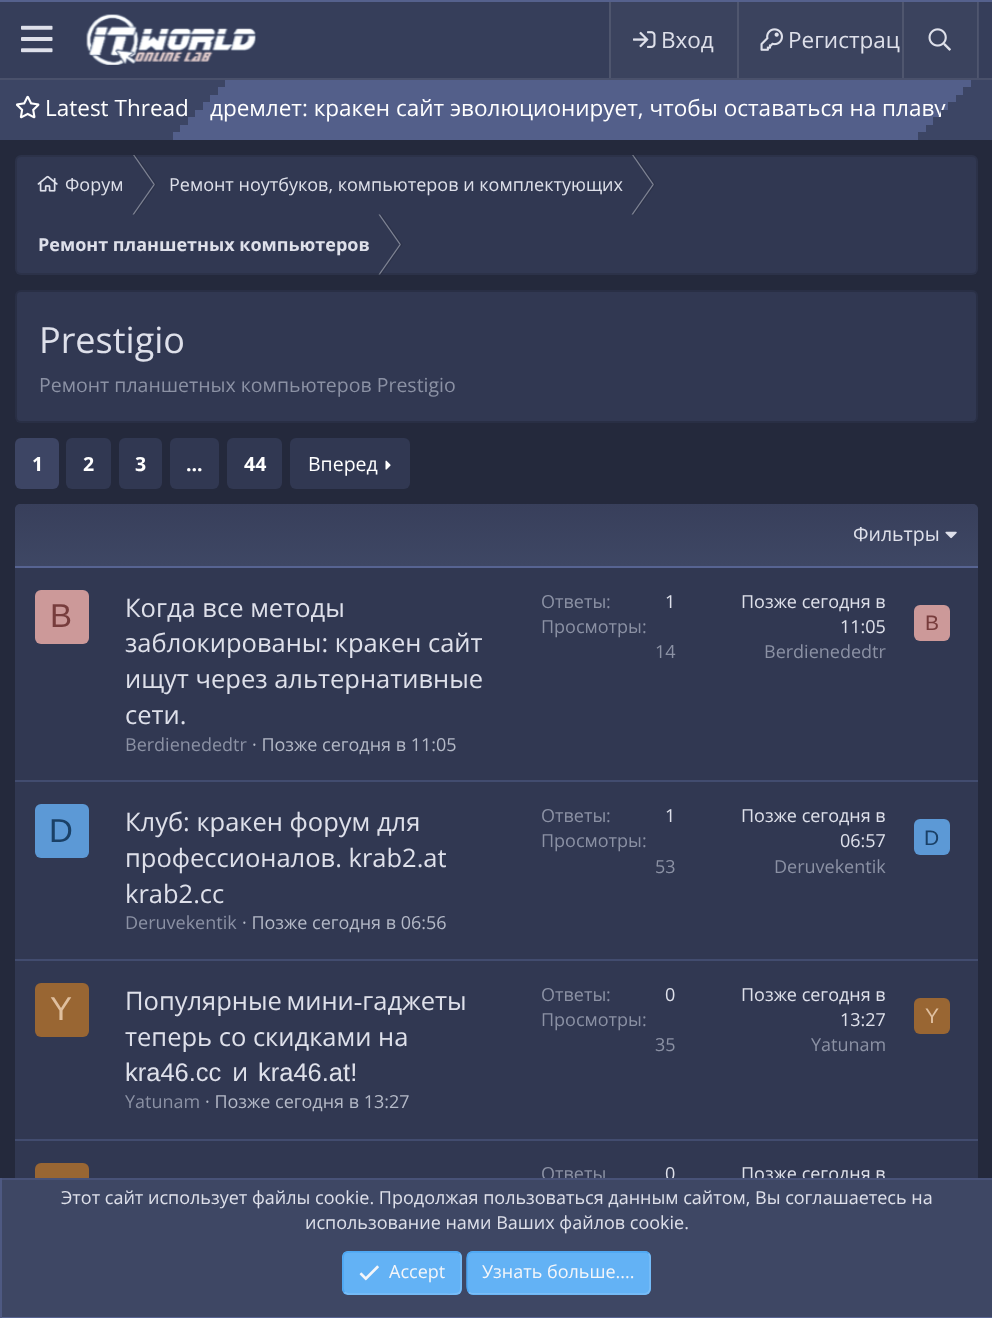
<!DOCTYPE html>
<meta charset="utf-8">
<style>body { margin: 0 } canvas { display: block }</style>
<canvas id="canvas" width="992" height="1318"></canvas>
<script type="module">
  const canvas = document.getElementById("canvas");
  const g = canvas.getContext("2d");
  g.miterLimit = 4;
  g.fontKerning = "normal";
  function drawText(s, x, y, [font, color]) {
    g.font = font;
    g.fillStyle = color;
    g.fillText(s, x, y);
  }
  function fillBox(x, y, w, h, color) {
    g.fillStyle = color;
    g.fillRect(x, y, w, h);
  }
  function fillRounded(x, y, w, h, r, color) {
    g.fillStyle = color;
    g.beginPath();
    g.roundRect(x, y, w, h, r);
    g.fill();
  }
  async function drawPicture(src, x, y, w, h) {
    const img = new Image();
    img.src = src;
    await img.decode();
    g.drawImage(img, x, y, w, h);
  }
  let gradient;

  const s1 = ["22.5px Open Sans", "#DEE0EA"];
  const s2 = ["22.5px Open Sans", "#FFFFFF"];
  const s3 = ["18px Open Sans", "#DEE0EA"];
  const s4 = ["bold 18px Open Sans", "#DEE0EA"];
  const s5 = ["36px Open Sans", "#DEE0EA"];
  const s6 = ["19.5px Open Sans", "#8B91A4"];
  const s7 = ["bold 19.5px Open Sans", "#FFFFFF"];
  const s8 = ["19.5px Open Sans", "#FFFFFF"];
  const s9 = ["19.5px Open Sans", "#DEE0EA"];
  const s10 = ["33px Liberation Sans", "#773C3C"];
  const s11 = ["25.5px Open Sans", "#DEE0EA"];
  const s12 = ["18px Open Sans", "#8B91A4"];
  const s13 = ["18px Open Sans", "#B4B9C7"];
  const s14 = ["21px Liberation Sans", "#773C3C"];
  const s15 = ["33px Liberation Sans", "#1A4066"];
  const s16 = ["21px Liberation Sans", "#1A4066"];
  const s17 = ["33px Liberation Sans", "#DFBF9F"];
  const s18 = ["25.5px Liberation Sans", "#DEE0EA"];
  const s19 = ["21px Liberation Sans", "#DFBF9F"];
  const s20 = ["18px Open Sans", "#F5F6F9"];

  fillBox(0, 0, 992, 1318, "#24293C");
  fillBox(0, 0, 992, 2, "#55618D");
  fillBox(0, 2, 992, 76, "#363E5A");
  fillBox(978, 2, 1, 76, "#4A516B");
  fillBox(0, 78, 992, 2, "#4A516B");
  await drawPicture("pic1.png", 21, 25, 32, 28);
  await drawPicture("pic2.png", 86, 14, 170, 51);
  fillBox(611, 2, 291, 76, "#3B435E");
  fillBox(609, 2, 2, 76, "#4F566E");
  await drawPicture("pic3.png", 633, 31, 23, 17);
  drawText("Вход", 661, 48, s1);
  fillBox(737, 2, 2, 76, "#4F566E");
  await drawPicture("pic4.png", 760, 28, 23, 23);
  drawText("Регистрац", 788, 48, s1);
  fillBox(904, 2, 73, 76, "#3B435E");
  fillBox(977, 2, 1, 76, "#4F566E");
  fillBox(902, 2, 2, 76, "#4F566E");
  await drawPicture("pic5.png", 928, 28, 23, 23);
  fillBox(173, 80, 798, 60, "#535F8A");
  fillBox(0, 80, 225, 7, "#3C4564");
  fillBox(0, 87, 218, 8, "#3C4564");
  fillBox(0, 95, 210, 7, "#3C4564");
  fillBox(0, 102, 203, 8, "#3C4564");
  fillBox(0, 110, 195, 7, "#3C4564");
  fillBox(0, 117, 188, 8, "#3C4564");
  fillBox(0, 125, 180, 7, "#3C4564");
  fillBox(0, 132, 173, 8, "#3C4564");
  fillBox(971, 80, 21, 7, "#3C4564");
  fillBox(963, 87, 29, 8, "#3C4564");
  fillBox(956, 95, 36, 7, "#3C4564");
  fillBox(948, 102, 44, 8, "#3C4564");
  drawText("дремлет: кракен сайт эволюционирует, чтобы оставаться на плаву", 210, 116, s2);
  fillBox(941, 110, 51, 7, "#3C4564");
  fillBox(933, 117, 59, 8, "#3C4564");
  fillBox(926, 125, 66, 7, "#3C4564");
  fillBox(918, 132, 74, 8, "#3C4564");
  await drawPicture("pic6.png", 15, 95, 25, 24);
  drawText("Latest Thread", 45, 116, s2);
  fillRounded(15, 155, 963, 120, 6, "#313852");
  await drawPicture("pic7.png", 37, 175, 21, 17);
  g.fillStyle = "#7F8494";
  g.beginPath();
  g.moveTo(134.5, 155);
  g.lineTo(155, 184.5);
  g.lineTo(153.5, 184.5);
  g.lineTo(133, 155);
  g.closePath();
  g.fill();
  g.fillStyle = "rgba(0, 0, 0, 0.1)";
  g.beginPath();
  g.moveTo(136, 155);
  g.lineTo(156.5, 184.5);
  g.lineTo(155, 184.5);
  g.lineTo(134.5, 155);
  g.closePath();
  g.fill();
  g.fillStyle = "#7F8494";
  g.beginPath();
  g.moveTo(153.5, 184.5);
  g.lineTo(155, 184.5);
  g.lineTo(134, 214.5);
  g.lineTo(132.5, 214.5);
  g.closePath();
  g.fill();
  g.fillStyle = "rgba(0, 0, 0, 0.1)";
  g.beginPath();
  g.moveTo(155, 184.5);
  g.lineTo(156.5, 184.5);
  g.lineTo(135.5, 214.5);
  g.lineTo(134, 214.5);
  g.closePath();
  g.fill();
  g.fillStyle = "#7F8494";
  g.beginPath();
  g.moveTo(633.5, 155);
  g.lineTo(654, 184.5);
  g.lineTo(652.5, 184.5);
  g.lineTo(632, 155);
  g.closePath();
  g.fill();
  g.fillStyle = "rgba(0, 0, 0, 0.1)";
  g.beginPath();
  g.moveTo(635, 155);
  g.lineTo(655.5, 184.5);
  g.lineTo(654, 184.5);
  g.lineTo(633.5, 155);
  g.closePath();
  g.fill();
  g.fillStyle = "#7F8494";
  g.beginPath();
  g.moveTo(652.5, 184.5);
  g.lineTo(654, 184.5);
  g.lineTo(633, 214.5);
  g.lineTo(631.5, 214.5);
  g.closePath();
  g.fill();
  g.fillStyle = "rgba(0, 0, 0, 0.1)";
  g.beginPath();
  g.moveTo(654, 184.5);
  g.lineTo(655.5, 184.5);
  g.lineTo(634.5, 214.5);
  g.lineTo(633, 214.5);
  g.closePath();
  g.fill();
  g.fillStyle = "#7F8494";
  g.beginPath();
  g.moveTo(378.5, 214.5);
  g.lineTo(380, 214.5);
  g.lineTo(401, 244.5);
  g.lineTo(399.5, 244.5);
  g.closePath();
  g.fill();
  g.fillStyle = "rgba(0, 0, 0, 0.1)";
  g.beginPath();
  g.moveTo(380, 214.5);
  g.lineTo(381.5, 214.5);
  g.lineTo(402.5, 244.5);
  g.lineTo(401, 244.5);
  g.closePath();
  g.fill();
  g.fillStyle = "#7F8494";
  g.beginPath();
  g.moveTo(399.5, 244.5);
  g.lineTo(401, 244.5);
  g.lineTo(380, 274.5);
  g.lineTo(378.5, 274.5);
  g.closePath();
  g.fill();
  g.fillStyle = "rgba(0, 0, 0, 0.1)";
  g.beginPath();
  g.moveTo(401, 244.5);
  g.lineTo(402.5, 244.5);
  g.lineTo(381.5, 274.5);
  g.lineTo(380, 274.5);
  g.closePath();
  g.fill();
  g.beginPath();
  g.roundRect(16, 156, 961, 118, 5);
  g.strokeStyle = "rgba(0, 0, 0, 0.1)";
  g.lineWidth = 2;
  g.stroke();
  drawText("Форум", 65, 191, s3);
  drawText("Ремонт ноутбуков, компьютеров и комплектующих", 169, 191, s3);
  drawText("Ремонт планшетных компьютеров", 38, 251, s4);
  fillRounded(15, 290, 963, 133, 6, "#313852");
  g.beginPath();
  g.roundRect(16, 291, 961, 131, 5);
  g.strokeStyle = "rgba(0, 0, 0, 0.15)";
  g.stroke();
  drawText("Prestigio", 39, 353, s5);
  drawText("Ремонт планшетных компьютеров Prestigio", 39, 392, s6);
  fillRounded(15, 438, 44, 51, 6, "#3D4564");
  drawText("1", 32, 471, s7);
  fillRounded(66, 438, 45, 51, 6, "#313852");
  drawText("2", 83, 471, s7);
  fillRounded(119, 438, 43, 51, 6, "#313852");
  drawText("3", 135, 471, s7);
  fillRounded(170, 438, 49, 51, 6, "#313852");
  drawText("...", 186, 471, s7);
  fillRounded(227, 438, 55, 51, 6, "#313852");
  drawText("44", 244, 471, s7);
  fillRounded(290, 438, 120, 51, 6, "#313852");
  drawText("Вперед", 308, 471, s8);
  await drawPicture("pic8.png", 385, 460, 6, 10);
  fillRounded(15, 504, 963, 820, 6, "#313852");
  gradient = g.createLinearGradient(497, 566, 497, 504);
  gradient.addColorStop(0, "#3E4764");
  gradient.addColorStop(1, "#383F5B");
  g.fillStyle = gradient;
  g.beginPath();
  g.roundRect(15, 504, 963, 62, [5, 5, 0, 0]);
  g.fill();
  fillBox(15, 566, 963, 2, "#576492");
  drawText("Фильтры", 853, 541, s9);
  await drawPicture("pic9.png", 945, 531, 12, 8);
  fillRounded(35, 590, 54, 54, 6, "#CC9999");
  drawText("B", 50, 627, s10);
  drawText("Когда все методы", 125, 617, s11);
  drawText("заблокированы: кракен сайт", 125, 652, s11);
  drawText("ищут через альтернативные", 125, 688, s11);
  drawText("сети.", 125, 724, s11);
  drawText("Berdienededtr", 125, 751, s12);
  drawText("· Позже сегодня в 11:05", 252, 751, s13);
  g.save();
  g.beginPath();
  g.rect(542, 590, 135, 25);
  g.clip();
  drawText("Ответы", 541, 608, s12);
  g.restore();
  drawText(":", 606, 608, s12);
  drawText("1", 665, 608, s3);
  drawText("Просмотры:", 541, 633, s12);
  drawText("14", 655, 658, s12);
  drawText("Позже сегодня в", 741, 608, s3);
  drawText("11:05", 840, 633, s3);
  drawText("Berdienededtr", 764, 658, s12);
  fillRounded(914, 605, 36, 36, 6, "#CC9999");
  drawText("B", 925, 630, s14);
  fillBox(15, 780, 963, 2, "#424C6F");
  fillRounded(35, 804, 54, 54, 6, "#5C99D6");
  drawText("D", 49, 842, s15);
  drawText("Клуб: кракен форум для", 125, 831, s11);
  drawText("профессионалов. krab2.at", 125, 867, s11);
  drawText("krab2.cc", 125, 903, s11);
  drawText("Deruvekentik", 125, 929, s12);
  drawText("· Позже сегодня в 06:56", 242, 929, s13);
  g.save();
  g.beginPath();
  g.rect(542, 804, 135, 26);
  g.clip();
  drawText("Ответы", 541, 822, s12);
  g.restore();
  drawText(":", 606, 822, s12);
  drawText("1", 665, 822, s3);
  drawText("Просмотры:", 541, 847, s12);
  drawText("53", 655, 873, s12);
  drawText("Позже сегодня в", 741, 822, s3);
  drawText("06:57", 840, 847, s3);
  drawText("Deruvekentik", 774, 873, s12);
  fillRounded(914, 819, 36, 36, 6, "#5C99D6");
  drawText("D", 924, 845, s16);
  fillBox(15, 959, 963, 2, "#424C6F");
  fillRounded(35, 983, 54, 54, 6, "#996633");
  drawText("Y", 50, 1020, s17);
  g.wordSpacing = "-2px";
  drawText("Популярные мини‑гаджеты", 125, 1010, s11);
  g.wordSpacing = "0px";
  drawText("теперь со скидками на", 125, 1046, s11);
  drawText("kra46.cc", 125, 1081, s18);
  drawText("и", 232, 1081, s11);
  drawText("kra46.at!", 258, 1081, s18);
  drawText("Yatunam", 125, 1108, s12);
  drawText("· Позже сегодня в 13:27", 205, 1108, s13);
  g.save();
  g.beginPath();
  g.rect(542, 983, 135, 25);
  g.clip();
  drawText("Ответы", 541, 1001, s12);
  g.restore();
  drawText(":", 606, 1001, s12);
  drawText("0", 665, 1001, s3);
  drawText("Просмотры:", 541, 1026, s12);
  drawText("35", 655, 1051, s12);
  drawText("Позже сегодня в", 741, 1001, s3);
  drawText("13:27", 840, 1026, s3);
  drawText("Yatunam", 811, 1051, s12);
  fillRounded(914, 998, 36, 36, 6, "#996633");
  drawText("Y", 925, 1023, s19);
  fillBox(15, 1139, 963, 2, "#424C6F");
  fillRounded(35, 1163, 54, 54, 6, "#996633");
  g.save();
  g.beginPath();
  g.rect(542, 1163, 135, 24);
  g.clip();
  drawText("Ответы", 541, 1180, s12);
  g.restore();
  drawText("0", 665, 1180, s3);
  drawText("Позже сегодня в", 741, 1180, s3);
  fillBox(2, 1180, 990, 137, "#3E4764");
  fillBox(0, 1178, 992, 2, "#485278");
  fillBox(0, 1317, 992, 1, "#576492");
  fillBox(0, 1178, 2, 140, "#4E5982");
  drawText("Этот сайт использует файлы cookie. Продолжая пользоваться данным сайтом, Вы соглашаетесь на", 61, 1204, s3);
  drawText("использование нами Ваших файлов cookie.", 305, 1229, s3);
  fillRounded(342, 1251, 120, 44, 6, "#63B2F5");
  g.beginPath();
  g.moveTo(459.5, 1253.5);
  g.bezierCurveTo(462, 1255.5, 461, 1259.5, 461, 1262);
  g.lineTo(461, 1273);
  g.bezierCurveTo(461, 1297.5, 464.5, 1294, 438, 1294);
  g.lineTo(348, 1294);
  g.bezierCurveTo(346.5, 1293.5, 345.5, 1293, 344.5, 1292);
  g.strokeStyle = "#7BBEF7";
  g.lineWidth = 1.5;
  g.stroke();
  g.beginPath();
  g.moveTo(344.5, 1292);
  g.bezierCurveTo(342, 1290, 343, 1286, 343, 1283);
  g.lineTo(343, 1273);
  g.bezierCurveTo(343, 1248, 339.5, 1252, 366, 1252);
  g.lineTo(456, 1252);
  g.bezierCurveTo(457.5, 1252, 458.5, 1252.5, 459.5, 1253.5);
  g.strokeStyle = "#4BA6F3";
  g.stroke();
  await drawPicture("pic10.png", 359, 1265, 20, 16);
  drawText("Accept", 389, 1278, s20);
  fillRounded(467, 1251, 184, 44, 6, "#63B2F5");
  g.beginPath();
  g.moveTo(648.5, 1253.5);
  g.bezierCurveTo(651, 1255.5, 650, 1259.5, 650, 1262);
  g.lineTo(650, 1283);
  g.bezierCurveTo(650, 1287, 651, 1293.5, 645, 1294);
  g.lineTo(471, 1293.5);
  g.lineTo(469, 1292);
  g.strokeStyle = "#7BBEF7";
  g.stroke();
  g.beginPath();
  g.moveTo(469, 1292);
  g.bezierCurveTo(466.5, 1290, 467, 1286, 467, 1283);
  g.lineTo(467, 1262);
  g.bezierCurveTo(467, 1258.5, 466.5, 1252, 472.5, 1252);
  g.lineTo(646.5, 1252);
  g.lineTo(648.5, 1253.5);
  g.strokeStyle = "#4BA6F3";
  g.stroke();
  drawText("Узнать больше....", 482, 1278, s20);
</script>
